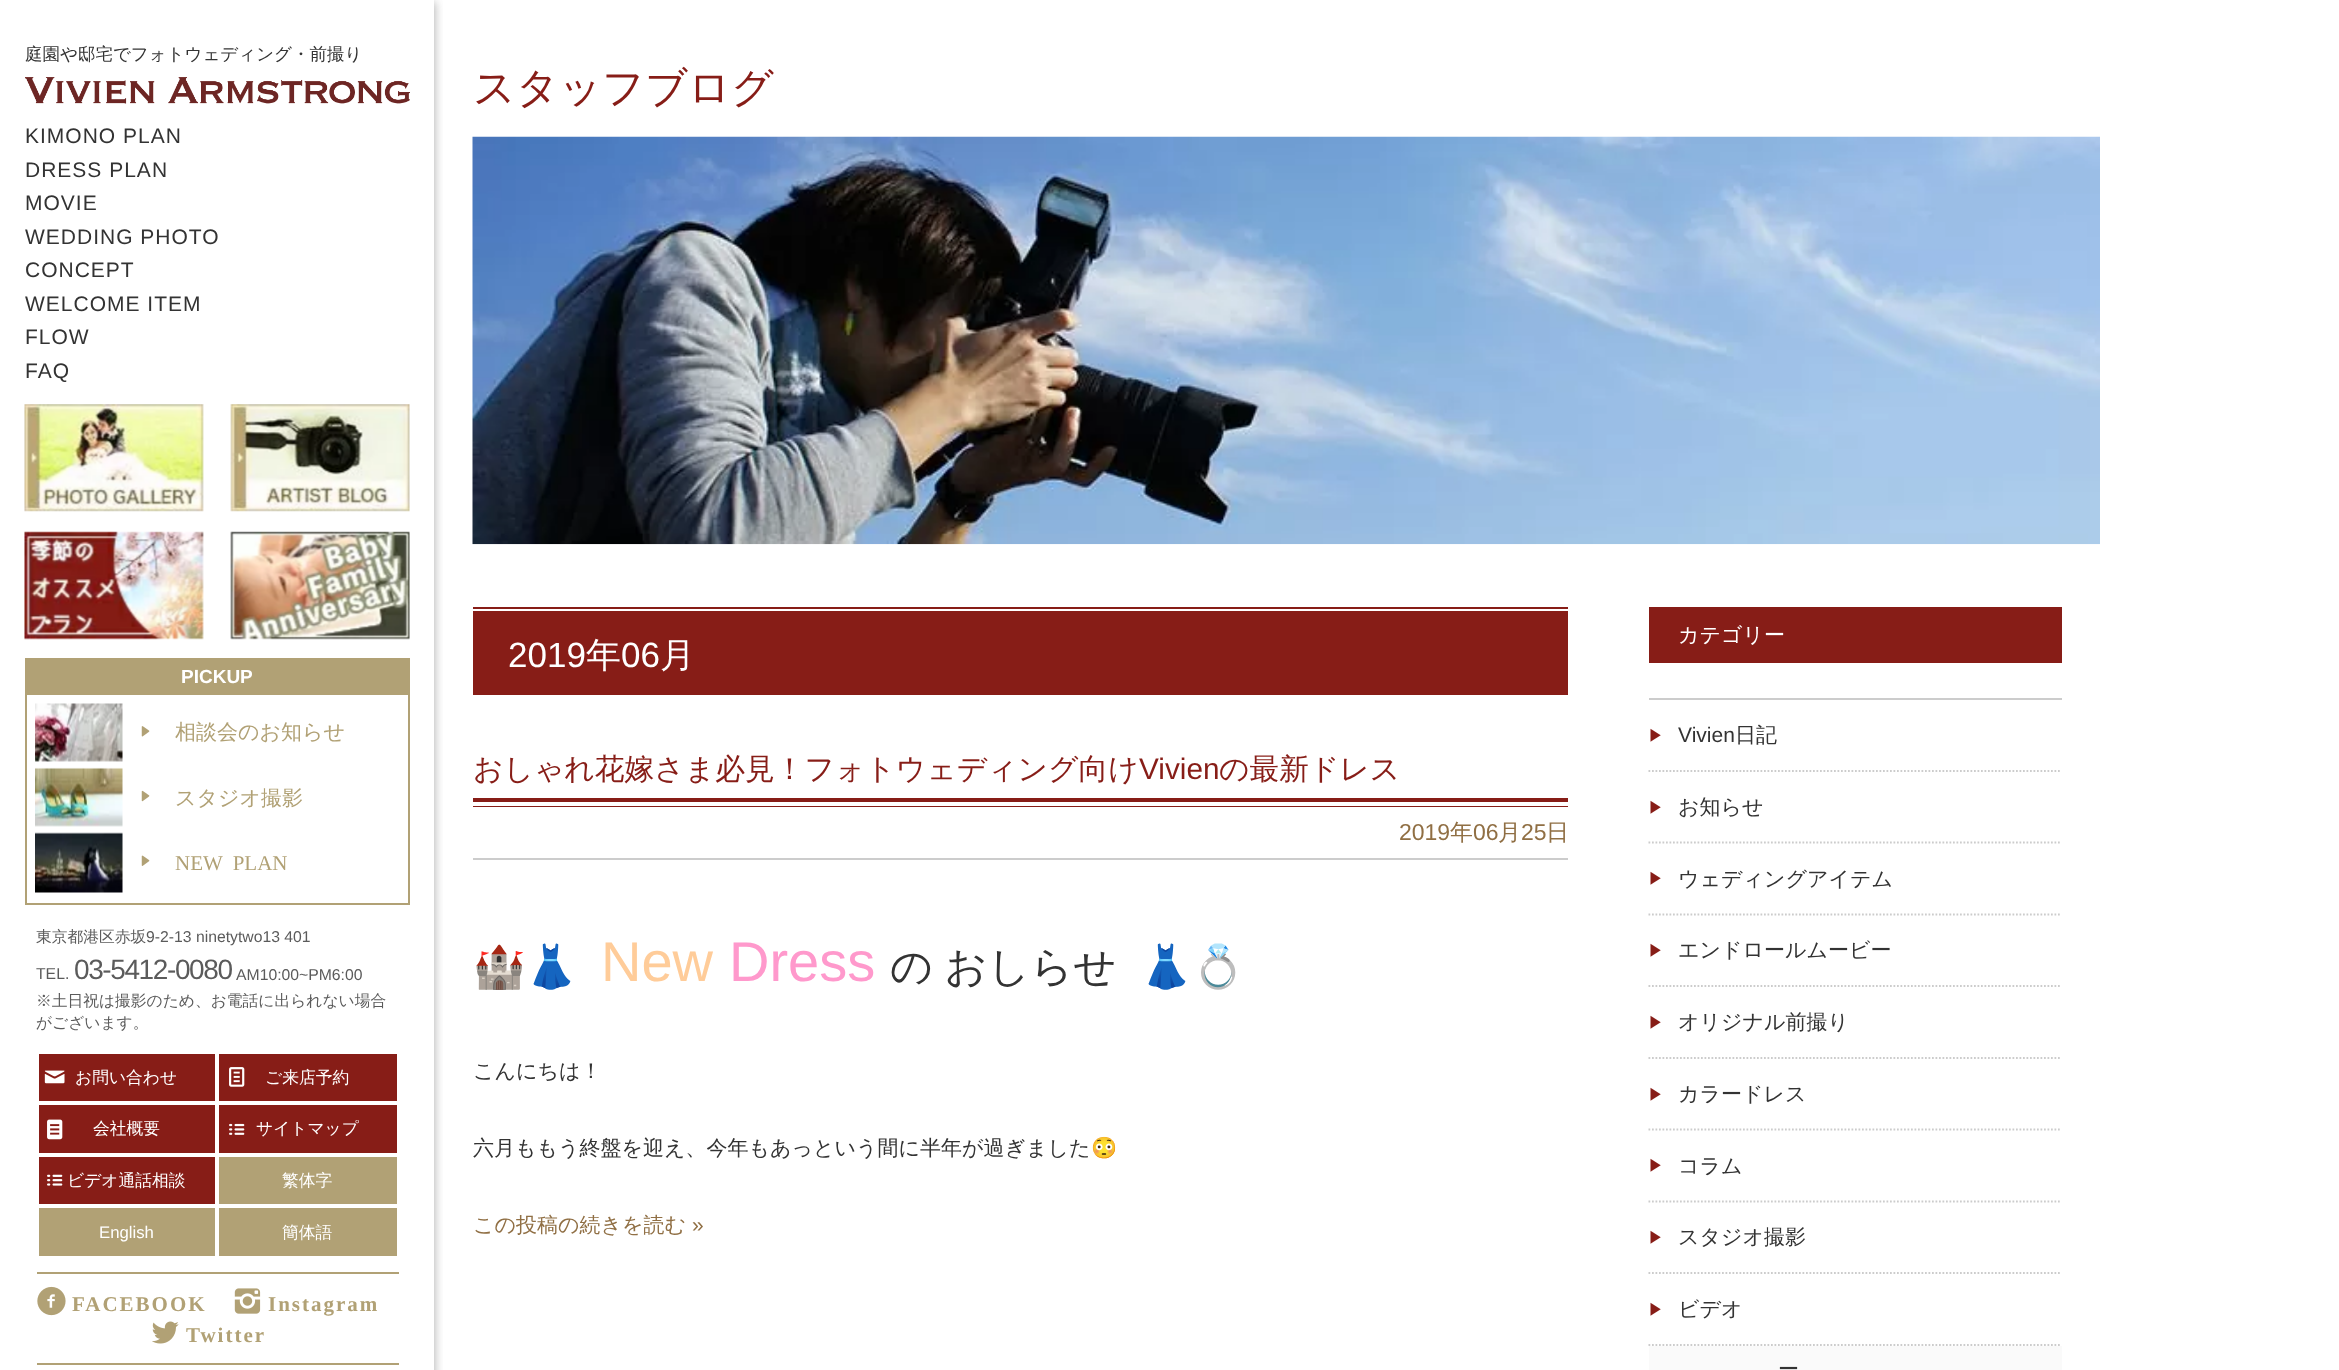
<!DOCTYPE html>
<meta charset="utf-8">
<style>body { margin: 0 } canvas { display: block }</style>
<canvas id="canvas" width="2339" height="1370"></canvas>
<script type="module">
  const canvas = document.getElementById("canvas");
  const g = canvas.getContext("2d");
  g.miterLimit = 4;
  g.fontKerning = "normal";
  function drawText(s, x, y, [font, color]) {
    g.font = font;
    g.fillStyle = color;
    g.fillText(s, x, y);
  }
  function fillBox(x, y, w, h, color) {
    g.fillStyle = color;
    g.fillRect(x, y, w, h);
  }
  async function drawPicture(src, x, y, w, h) {
    const img = new Image();
    img.src = src;
    await img.decode();
    g.drawImage(img, x, y, w, h);
  }

  const s1 = ["500 17.5px WenQuanYi Zen Hei", "#333333"];
  const s2 = ["21px Liberation Sans", "#333333"];
  const s3 = ["bold 19px Liberation Sans", "#FFFFFF"];
  const s4 = ["500 21px WenQuanYi Zen Hei", "#B1A175"];
  const s5 = ["21px Liberation Serif", "#B1A175"];
  const s6 = ["500 42px WenQuanYi Zen Hei", "#871D17"];
  const s7 = ["500 15.75px WenQuanYi Zen Hei", "#5B5B5B"];
  const s8 = ["15.75px Liberation Sans", "#5B5B5B"];
  const s9 = ["28px Liberation Sans", "#5B5B5B"];
  const s10 = ["500 16.75px WenQuanYi Zen Hei", "#FFFFFF"];
  const s11 = ["16.75px Liberation Sans", "#FFFFFF"];
  const s12 = ["bold 21px Liberation Serif", "#B1A175"];
  const s13 = ["35px Liberation Sans", "#FFFFFF"];
  const s14 = ["500 35px WenQuanYi Zen Hei", "#FFFFFF"];
  const s15 = ["500 29.75px WenQuanYi Zen Hei", "#871D17"];
  const s16 = ["29.75px Liberation Sans", "#871D17"];
  const s17 = ["23px Liberation Sans", "#906F44"];
  const s18 = ["500 23px WenQuanYi Zen Hei", "#906F44"];
  const s19 = ["42px Noto Color Emoji", "#333333"];
  const s20 = ["56px Liberation Sans", "#FFCC99"];
  const s21 = ["56px Liberation Sans", "#FF99CC"];
  const s22 = ["500 42px WenQuanYi Zen Hei", "#333333"];
  const s23 = ["500 21px WenQuanYi Zen Hei", "#333333"];
  const s24 = ["21px Noto Color Emoji", "#333333"];
  const s25 = ["500 21px WenQuanYi Zen Hei", "#906F44"];
  const s26 = ["21px Liberation Sans", "#906F44"];
  const s27 = ["500 21px WenQuanYi Zen Hei", "#FFFFFF"];
  const s28 = ["500 15.75px WenQuanYi Zen Hei", "#871D17"];

  fillBox(0, 0, 2339, 1370, "#FFFFFF");
  g.save();
  g.beginPath();
  g.rect(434, 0, 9, 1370);
  g.clip();
  g.fillStyle = "rgba(100, 100, 100, 0.4)";
  g.filter = "blur(4.5px)";
  g.beginPath();
  g.rect(2, 2, 434, 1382);
  g.fill();
  g.filter = "none";
  g.restore();
  drawText("庭園や邸宅でフォトウェディング・前撮り", 25, 60, s1);
  await drawPicture("pic1.png", 25, 77, 385, 27);
  g.letterSpacing = "1px";
  drawText("KIMONO PLAN", 25, 143, s2);
  drawText("DRESS PLAN", 25, 177, s2);
  drawText("MOVIE", 25, 210, s2);
  drawText("WEDDING PHOTO", 25, 244, s2);
  drawText("CONCEPT", 25, 277, s2);
  drawText("WELCOME ITEM", 25, 311, s2);
  drawText("FLOW", 25, 344, s2);
  drawText("FAQ", 25, 378, s2);
  await drawPicture("pic2.png", 24, 404, 180, 108);
  await drawPicture("pic3.png", 230, 404, 180, 108);
  await drawPicture("pic4.png", 24, 531, 180, 109);
  await drawPicture("pic5.png", 230, 531, 180, 109);
  fillBox(25, 658, 385, 35, "#B1A175");
  g.letterSpacing = "0px";
  drawText("PICKUP", 181, 683, s3);
  g.strokeStyle = "#B1A175";
  g.lineWidth = 2;
  g.strokeRect(26, 694, 383, 210);
  await drawPicture("pic6.png", 35, 703, 88, 59);
  await drawPicture("pic7.png", 141, 726, 9, 11);
  drawText("相談会のお知らせ", 175, 739, s4);
  await drawPicture("pic8.png", 35, 767, 88, 60);
  await drawPicture("pic9.png", 141, 790, 9, 12);
  drawText("スタジオ撮影", 175, 805, s4);
  await drawPicture("pic10.png", 35, 832, 88, 61);
  await drawPicture("pic11.png", 141, 855, 9, 11);
  g.wordSpacing = "5px";
  drawText("NEW PLAN", 175, 870, s5);
  g.wordSpacing = "0px";
  drawText("スタッフブログ", 473, 102, s6);
  await drawPicture("pic12.png", 472, 136, 1628, 409);
  drawText("東京都港区赤坂", 36, 942, s7);
  drawText("9-2-13 ninetytwo13 401", 146, 942, s8);
  drawText("TEL.", 36, 979, s8);
  g.letterSpacing = "-1.4px";
  drawText("03-5412-0080", 74, 979, s9);
  g.letterSpacing = "0px";
  drawText("AM10:00~PM6:00", 236, 980, s8);
  drawText("※土日祝は撮影のため、お電話に出られない場合", 36, 1006, s7);
  drawText("がございます。", 36, 1028, s7);
  fillBox(39, 1054, 176, 47, "#871D17");
  await drawPicture("pic13.png", 44, 1070, 21, 14);
  drawText("お問い合わせ", 75, 1083, s10);
  fillBox(219, 1054, 178, 47, "#871D17");
  await drawPicture("pic14.png", 229, 1067, 16, 20);
  drawText("ご来店予約", 265, 1083, s10);
  fillBox(39, 1105, 176, 48, "#871D17");
  await drawPicture("pic15.png", 47, 1119, 16, 21);
  drawText("会社概要", 93, 1134, s10);
  fillBox(219, 1105, 178, 48, "#871D17");
  await drawPicture("pic16.png", 229, 1123, 16, 12);
  drawText("サイトマップ", 256, 1134, s10);
  fillBox(39, 1157, 176, 47, "#871D17");
  await drawPicture("pic17.png", 47, 1174, 16, 12);
  drawText("ビデオ通話相談", 67, 1186, s10);
  fillBox(219, 1157, 178, 47, "#B1A175");
  drawText("繁体字", 282, 1186, s10);
  fillBox(39, 1208, 176, 48, "#B1A175");
  drawText("English", 99, 1238, s11);
  fillBox(219, 1208, 178, 48, "#B1A175");
  drawText("簡体語", 282, 1238, s10);
  fillBox(37, 1272, 362, 2, "#B1A175");
  fillBox(37, 1363, 362, 2, "#B1A175");
  await drawPicture("pic18.png", 37, 1286, 29, 30);
  g.letterSpacing = "2px";
  drawText("FACEBOOK", 72, 1311, s12);
  await drawPicture("pic19.png", 234, 1288, 27, 26);
  drawText("Instagram", 268, 1311, s12);
  await drawPicture("pic20.png", 152, 1321, 27, 23);
  drawText("Twitter", 186, 1342, s12);
  fillBox(473, 607, 1095, 88, "#871D17");
  fillBox(473, 609, 1095, 2, "#FFFFFF");
  g.letterSpacing = "0px";
  drawText("2019", 508, 667, s13);
  drawText("年", 586, 667, s14);
  drawText("06", 621, 667, s13);
  drawText("月", 660, 667, s14);
  fillBox(473, 858, 1095, 2, "#CCCCCC");
  drawText("おしゃれ花嫁さま必見！フォトウェディング向け", 473, 779, s15);
  drawText("Vivien", 1139, 779, s16);
  drawText("の最新ドレス", 1219, 779, s15);
  fillBox(473, 798, 1095, 9, "#871D17");
  fillBox(473, 802, 1095, 4, "#FFFFFF");
  drawText("2019", 1399, 840, s17);
  drawText("年", 1450, 840, s18);
  drawText("06", 1473, 840, s17);
  drawText("月", 1498, 840, s18);
  drawText("25", 1521, 840, s17);
  drawText("日", 1546, 840, s18);
  drawText("🏰👗", 473, 981, s19);
  drawText("New", 601, 981, s20);
  drawText("Dress", 729, 981, s21);
  g.wordSpacing = "-1px";
  drawText("の おしらせ", 890, 981, s22);
  g.wordSpacing = "0px";
  drawText("👗💍", 1140, 981, s19);
  drawText("こんにちは！", 473, 1078, s23);
  drawText("六月ももう終盤を迎え、今年もあっという間に半年が過ぎました", 473, 1155, s23);
  drawText("😳", 1091, 1155, s24);
  drawText("この投稿の続きを読む", 473, 1232, s25);
  drawText("»", 692, 1232, s26);
  fillBox(1649, 607, 413, 56, "#871D17");
  drawText("カテゴリー", 1678, 642, s27);
  fillBox(1649, 698, 413, 2, "#CCCCCC");
  g.beginPath();
  g.moveTo(1648.5, 771);
  g.lineTo(2061.5, 771);
  g.strokeStyle = "#CCCCCC";
  g.lineWidth = 1.8;
  g.setLineDash([1.75, 1.75]);
  g.stroke();
  drawText("▶", 1648, 741, s28);
  drawText("Vivien", 1678, 742, s2);
  drawText("日記", 1735, 742, s23);
  g.beginPath();
  g.moveTo(1648.5, 842.5);
  g.lineTo(2061.5, 842.5);
  g.stroke();
  drawText("▶", 1648, 813, s28);
  drawText("お知らせ", 1678, 814, s23);
  g.beginPath();
  g.moveTo(1648.5, 914.5);
  g.lineTo(2061.5, 914.5);
  g.stroke();
  drawText("▶", 1648, 884, s28);
  drawText("ウェディングアイテム", 1678, 886, s23);
  g.beginPath();
  g.moveTo(1648.5, 986);
  g.lineTo(2061.5, 986);
  g.stroke();
  drawText("▶", 1648, 956, s28);
  drawText("エンドロールムービー", 1678, 957, s23);
  g.beginPath();
  g.moveTo(1648.5, 1058);
  g.lineTo(2061.5, 1058);
  g.stroke();
  drawText("▶", 1648, 1028, s28);
  drawText("オリジナル前撮り", 1678, 1029, s23);
  g.beginPath();
  g.moveTo(1648.5, 1129.5);
  g.lineTo(2061.5, 1129.5);
  g.stroke();
  drawText("▶", 1648, 1100, s28);
  drawText("カラードレス", 1678, 1101, s23);
  g.beginPath();
  g.moveTo(1648.5, 1201.5);
  g.lineTo(2061.5, 1201.5);
  g.stroke();
  drawText("▶", 1648, 1171, s28);
  drawText("コラム", 1678, 1173, s23);
  g.beginPath();
  g.moveTo(1648.5, 1273);
  g.lineTo(2061.5, 1273);
  g.stroke();
  drawText("▶", 1648, 1243, s28);
  drawText("スタジオ撮影", 1678, 1244, s23);
  drawText("▶", 1648, 1315, s28);
  drawText("ビデオ", 1678, 1316, s23);
  g.beginPath();
  g.moveTo(1648.5, 1345);
  g.lineTo(2061.5, 1345);
  g.stroke();
  fillBox(1649, 1346, 413, 24, "#FAFAFA");
  drawText("ー", 1778, 1376, s23);
</script>
